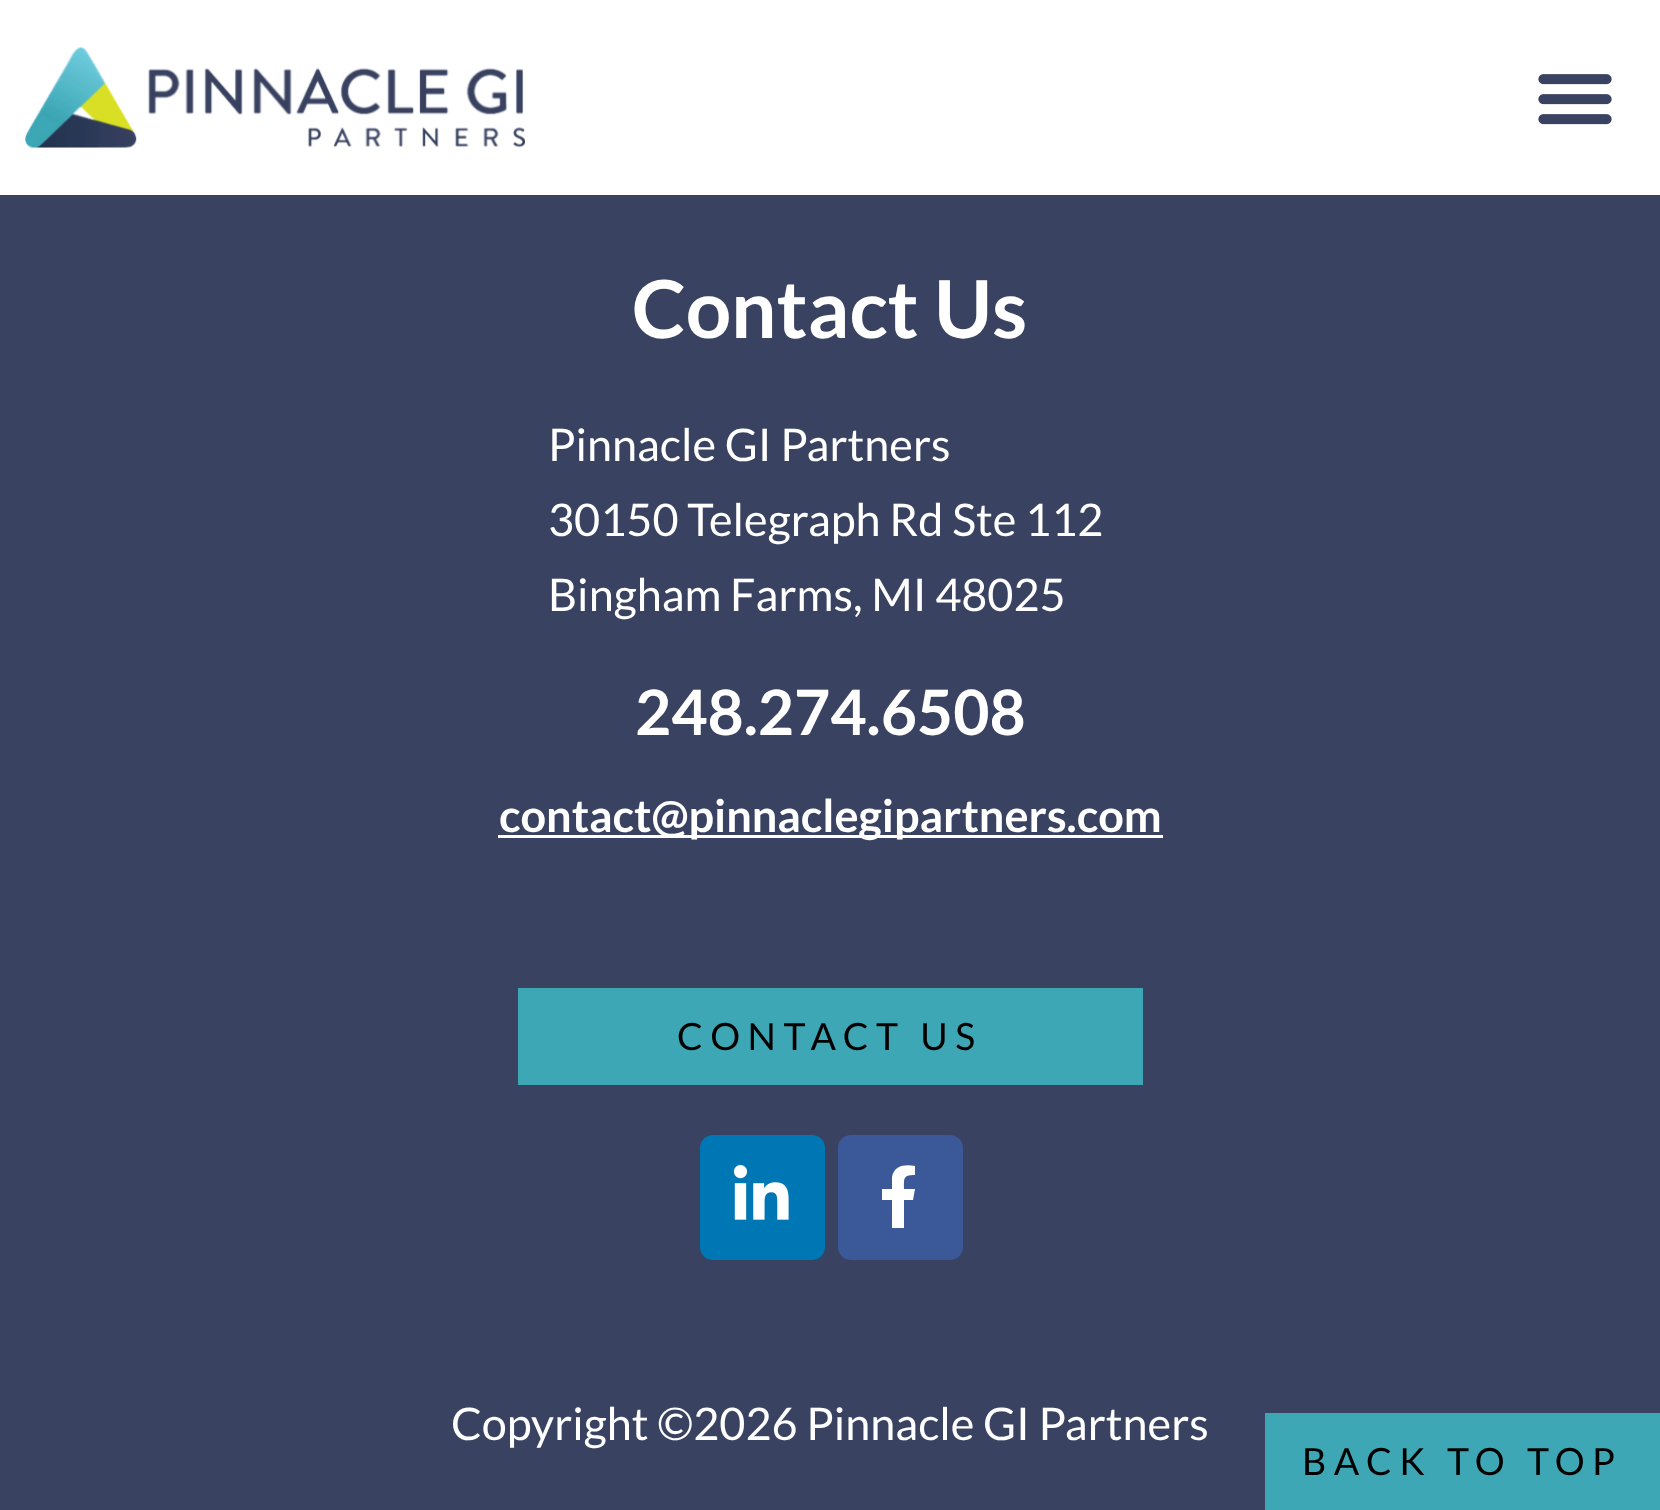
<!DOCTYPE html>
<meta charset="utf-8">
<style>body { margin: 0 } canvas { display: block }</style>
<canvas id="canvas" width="1660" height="1510"></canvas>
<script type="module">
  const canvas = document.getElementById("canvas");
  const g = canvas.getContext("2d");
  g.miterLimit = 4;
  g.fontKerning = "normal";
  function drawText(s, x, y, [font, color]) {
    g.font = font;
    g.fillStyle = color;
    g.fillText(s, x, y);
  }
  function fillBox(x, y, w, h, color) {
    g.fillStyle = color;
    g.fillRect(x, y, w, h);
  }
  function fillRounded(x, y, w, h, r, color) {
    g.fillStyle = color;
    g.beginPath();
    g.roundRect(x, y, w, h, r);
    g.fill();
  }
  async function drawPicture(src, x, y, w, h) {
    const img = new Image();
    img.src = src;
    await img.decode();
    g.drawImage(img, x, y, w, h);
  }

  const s1 = ["bold 80px Lato", "#FFFFFF"];
  const s2 = ["45px Lato", "#FFFFFF"];
  const s3 = ["bold 62.5px Lato", "#FFFFFF"];
  const s4 = ["bold 45px Lato", "#FFFFFF"];
  const s5 = ["37.5px Lato", "#000000"];

  fillBox(0, 0, 1660, 1510, "#394260");
  fillBox(0, 0, 1660, 195, "#FFFFFF");
  await drawPicture("pic1.png", 25, 47, 500, 101);
  await drawPicture("pic2.png", 1538, 74, 74, 51);
  drawText("Contact Us", 632, 338, s1);
  drawText("Pinnacle GI Partners", 548, 461, s2);
  drawText("30150 Telegraph Rd Ste 112", 548, 536, s2);
  drawText("Bingham Farms, MI 48025", 548, 611, s2);
  drawText("248.274.6508", 635, 735, s3);
  fillBox(498, 835, 665, 3, "#FFFFFF");
  drawText("contact@pinnaclegipartners.com", 499, 832, s4);
  fillBox(518, 988, 625, 97, "#3EA7B5");
  g.letterSpacing = "7.5px";
  drawText("CONTACT US", 677, 1050, s5);
  fillRounded(700, 1135, 125, 125, 13, "#0077B5");
  await drawPicture("pic3.png", 733, 1165, 56, 55);
  fillRounded(838, 1135, 125, 125, 13, "#3B5998");
  g.fillStyle = "#FFFFFF";
  g.beginPath();
  g.moveTo(913, 1200);
  g.lineTo(915, 1189);
  g.lineTo(904, 1189);
  g.bezierCurveTo(904, 1178, 903, 1175, 915, 1175);
  g.lineTo(915, 1166);
  g.bezierCurveTo(906, 1164, 894, 1165, 892, 1177);
  g.lineTo(892, 1189);
  g.lineTo(882, 1189);
  g.lineTo(882, 1200);
  g.lineTo(892, 1200);
  g.lineTo(892, 1228);
  g.lineTo(904, 1228);
  g.lineTo(904, 1200);
  g.closePath();
  g.fill();
  g.letterSpacing = "0px";
  drawText("Copyright ©2026 Pinnacle GI Partners", 451, 1440, s2);
  fillBox(1265, 1413, 395, 97, "#3EA7B5");
  g.letterSpacing = "7.5px";
  drawText("BACK TO TOP", 1302, 1475, s5);
</script>
